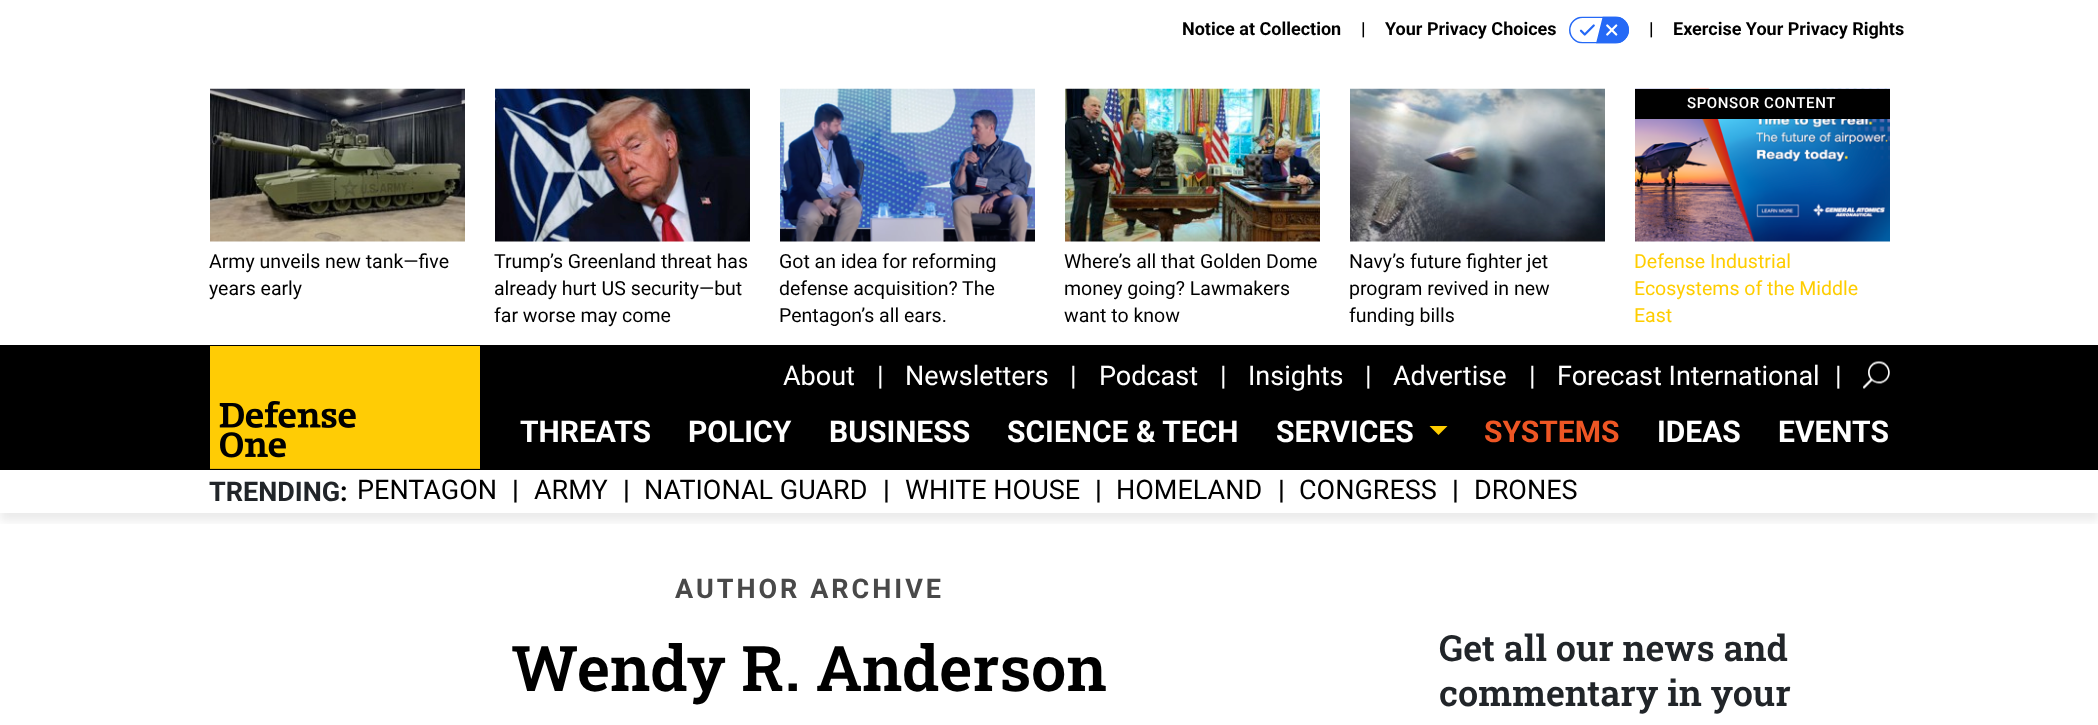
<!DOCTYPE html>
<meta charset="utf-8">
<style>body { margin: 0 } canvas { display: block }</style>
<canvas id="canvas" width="2098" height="725"></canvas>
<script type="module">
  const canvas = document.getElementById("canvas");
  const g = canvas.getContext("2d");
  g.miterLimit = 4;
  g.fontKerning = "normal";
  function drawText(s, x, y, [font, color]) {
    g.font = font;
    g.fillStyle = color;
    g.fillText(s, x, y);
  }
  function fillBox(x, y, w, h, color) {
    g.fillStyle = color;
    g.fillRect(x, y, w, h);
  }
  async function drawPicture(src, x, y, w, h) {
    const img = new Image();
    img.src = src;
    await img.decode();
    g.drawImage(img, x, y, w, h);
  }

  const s1 = ["bold 18px Roboto", "#000000"];
  const s2 = ["19.5px Roboto", "#000000"];
  const s3 = ["500 15px Roboto", "#FFFFFF"];
  const s4 = ["19.5px Roboto", "#FFCD00"];
  const s5 = ["27px Roboto", "#FFFFFF"];
  const s6 = ["bold 30px Roboto", "#FFFFFF"];
  const s7 = ["bold 30px Roboto", "#EE5624"];
  const s8 = ["bold 27px Roboto", "#212529"];
  const s9 = ["bold 27px Roboto", "#000000"];
  const s10 = ["27px Roboto", "#000000"];
  const s11 = ["bold 27px Roboto", "#494949"];
  const s12 = ["600 63px Roboto Slab", "#000000"];
  const s13 = ["600 36px Roboto Slab", "#212529"];

  fillBox(0, 0, 2098, 725, "#FFFFFF");
  drawText("Notice at Collection", 1182, 35, s1);
  drawText("|", 1361, 35, s1);
  drawText("Your Privacy Choices", 1385, 35, s1);
  await drawPicture("pic1.png", 1569, 16, 60, 28);
  drawText("|", 1649, 35, s1);
  drawText("Exercise Your Privacy Rights", 1673, 35, s1);
  await drawPicture("pic2.png", 210, 88, 255, 154);
  drawText("Army unveils new tank—five", 209, 268, s2);
  drawText("years early", 209, 295, s2);
  await drawPicture("pic3.png", 495, 88, 255, 154);
  drawText("Trump’s Greenland threat has", 494, 268, s2);
  drawText("already hurt US security—but", 494, 295, s2);
  drawText("far worse may come", 494, 322, s2);
  await drawPicture("pic4.png", 780, 88, 255, 154);
  drawText("Got an idea for reforming", 779, 268, s2);
  drawText("defense acquisition? The", 779, 295, s2);
  drawText("Pentagon’s all ears.", 779, 322, s2);
  await drawPicture("pic5.png", 1065, 88, 255, 154);
  drawText("Where’s all that Golden Dome", 1064, 268, s2);
  drawText("money going? Lawmakers", 1064, 295, s2);
  drawText("want to know", 1064, 322, s2);
  await drawPicture("pic6.png", 1350, 88, 255, 154);
  drawText("Navy’s future fighter jet", 1349, 268, s2);
  drawText("program revived in new", 1349, 295, s2);
  drawText("funding bills", 1349, 322, s2);
  await drawPicture("pic7.png", 1635, 88, 255, 154);
  fillBox(1635, 89, 255, 30, "#000000");
  g.letterSpacing = "0.6px";
  drawText("SPONSOR CONTENT", 1687, 108, s3);
  g.letterSpacing = "0px";
  drawText("Defense Industrial", 1634, 268, s4);
  drawText("Ecosystems of the Middle", 1634, 295, s4);
  drawText("East", 1634, 322, s4);
  g.save();
  g.beginPath();
  g.rect(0, 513, 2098, 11);
  g.clip();
  g.fillStyle = "rgba(0, 0, 0, 0.08)";
  g.filter = "blur(5px)";
  g.beginPath();
  g.rect(0, 477, 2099, 44);
  g.fill();
  g.filter = "none";
  g.restore();
  fillBox(0, 345, 2098, 125, "#000000");
  await drawPicture("pic8.png", 210, 346, 270, 123);
  drawText("About", 783, 385, s5);
  drawText("|", 877, 385, s5);
  drawText("Newsletters", 905, 385, s5);
  drawText("|", 1070, 385, s5);
  drawText("Podcast", 1099, 385, s5);
  drawText("|", 1220, 385, s5);
  drawText("Insights", 1248, 385, s5);
  drawText("|", 1365, 385, s5);
  drawText("Advertise", 1393, 385, s5);
  drawText("|", 1529, 385, s5);
  drawText("Forecast International", 1557, 385, s5);
  drawText("|", 1835, 385, s5);
  await drawPicture("pic9.png", 1863, 361, 27, 28);
  drawText("THREATS", 520, 442, s6);
  drawText("POLICY", 688, 442, s6);
  drawText("BUSINESS", 829, 442, s6);
  drawText("SCIENCE & TECH", 1007, 442, s6);
  drawText("SERVICES", 1276, 442, s6);
  g.fillStyle = "#FFCD00";
  g.beginPath();
  g.moveTo(1429.5, 426);
  g.lineTo(1447.5, 426);
  g.lineTo(1438.5, 435);
  g.closePath();
  g.fill();
  drawText("SYSTEMS", 1484, 442, s7);
  drawText("IDEAS", 1657, 442, s6);
  drawText("EVENTS", 1778, 442, s6);
  drawText("TRENDING", 209, 501, s8);
  drawText(":", 340, 501, s9);
  drawText("PENTAGON", 357, 499, s10);
  drawText("|", 512, 499, s9);
  drawText("ARMY", 534, 499, s10);
  drawText("|", 623, 499, s9);
  drawText("NATIONAL GUARD", 644, 499, s10);
  drawText("|", 883, 499, s9);
  drawText("WHITE HOUSE", 905, 499, s10);
  drawText("|", 1095, 499, s9);
  drawText("HOMELAND", 1116, 499, s10);
  drawText("|", 1278, 499, s9);
  drawText("CONGRESS", 1299, 499, s10);
  drawText("|", 1452, 499, s9);
  drawText("DRONES", 1474, 499, s10);
  g.letterSpacing = "3px";
  drawText("AUTHOR ARCHIVE", 675, 598, s11);
  g.letterSpacing = "0px";
  drawText("Wendy R. Anderson", 511, 691, s12);
  drawText("Get all our news and", 1439, 661, s13);
  drawText("commentary in your", 1439, 706, s13);
</script>
